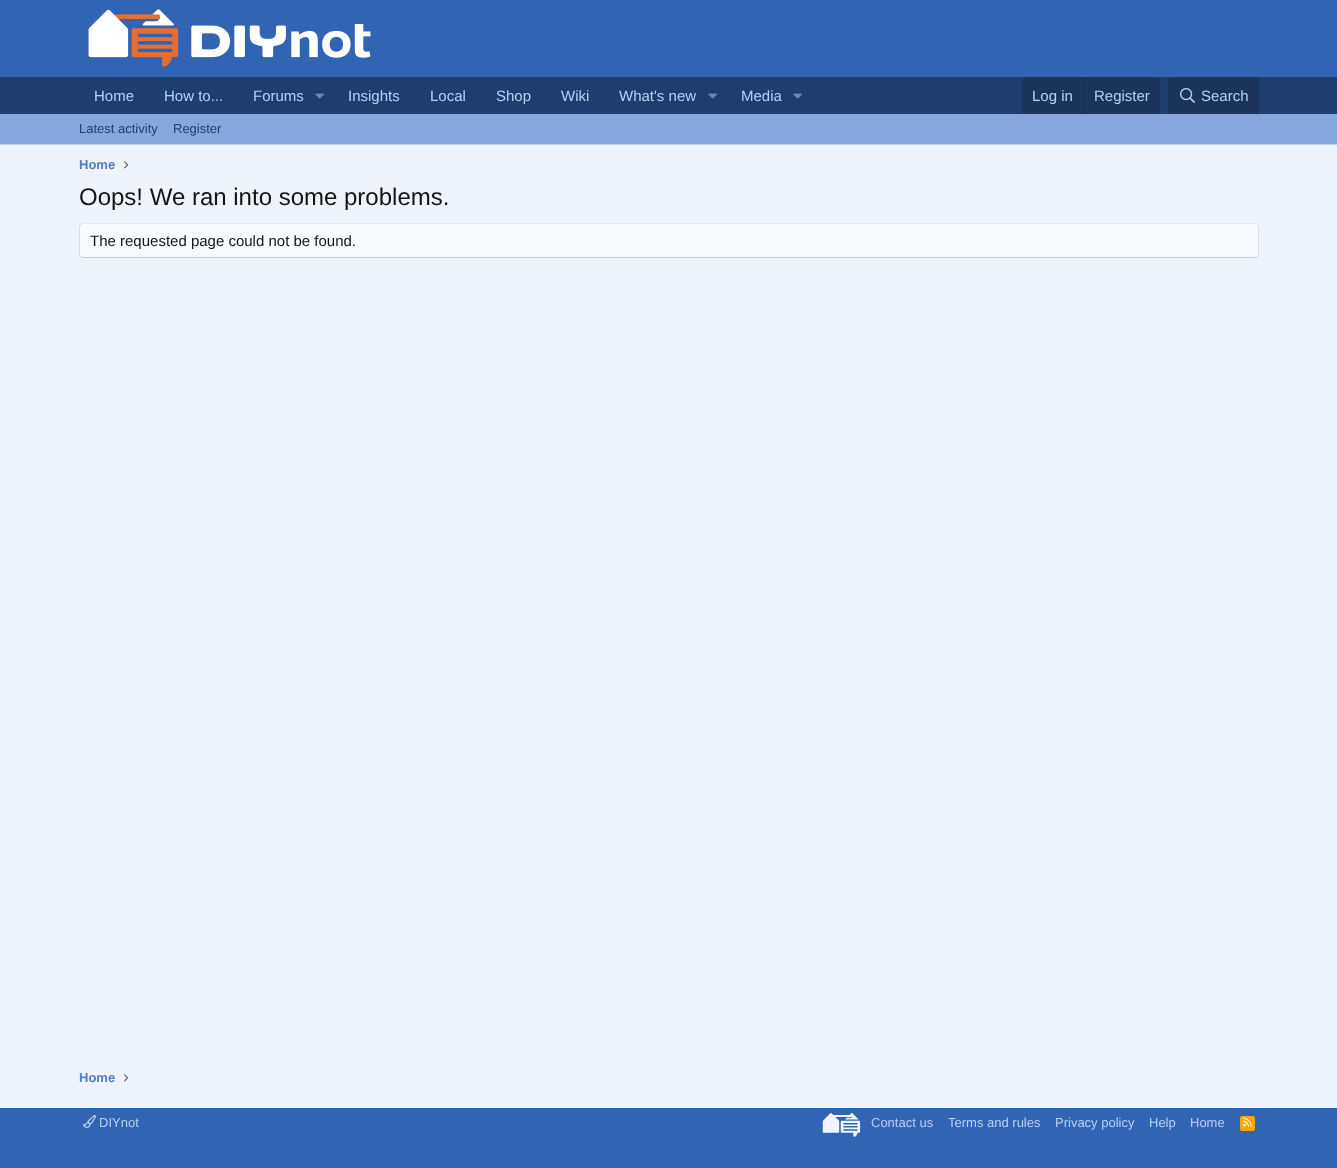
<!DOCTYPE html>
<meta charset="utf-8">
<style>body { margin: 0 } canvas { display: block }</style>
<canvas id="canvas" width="1337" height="1168"></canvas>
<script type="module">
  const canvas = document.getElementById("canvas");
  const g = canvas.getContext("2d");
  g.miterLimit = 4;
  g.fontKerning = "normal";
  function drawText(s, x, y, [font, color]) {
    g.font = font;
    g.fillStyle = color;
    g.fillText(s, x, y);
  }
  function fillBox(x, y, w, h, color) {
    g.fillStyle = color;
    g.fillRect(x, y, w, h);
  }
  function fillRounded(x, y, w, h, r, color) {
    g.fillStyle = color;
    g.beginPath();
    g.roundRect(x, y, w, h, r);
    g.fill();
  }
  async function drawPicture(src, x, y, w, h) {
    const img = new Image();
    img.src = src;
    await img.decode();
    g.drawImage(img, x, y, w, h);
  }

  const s1 = ["15px Liberation Sans", "#B8CFF5"];
  const s2 = ["13px Liberation Sans", "#1F3E70"];
  const s3 = ["bold 13px Liberation Sans", "#527EC5"];
  const s4 = ["24px Liberation Sans", "#141414"];
  const s5 = ["15px Liberation Sans", "#141414"];
  const s6 = ["13px Liberation Sans", "#B8CFF5"];

  fillBox(0, 0, 1337, 1168, "#EFF3FB");
  fillBox(0, 0, 1337, 77, "#3264B4");
  await drawPicture("pic1.png", 88, 9, 283, 58);
  fillBox(0, 77, 1337, 37, "#1F3E70");
  drawText("Home", 94, 101, s1);
  drawText("How to...", 164, 101, s1);
  drawText("Forums", 253, 101, s1);
  await drawPicture("pic2.png", 315, 93, 9, 6);
  drawText("Insights", 348, 101, s1);
  drawText("Local", 430, 101, s1);
  drawText("Shop", 496, 101, s1);
  drawText("Wiki", 561, 101, s1);
  drawText("What's new", 619, 101, s1);
  await drawPicture("pic2.png", 708, 93, 9, 6);
  drawText("Media", 741, 101, s1);
  await drawPicture("pic2.png", 793, 93, 9, 6);
  g.fillStyle = "#1C345B";
  g.beginPath();
  g.roundRect(1022, 77, 138, 37, [4, 4, 0, 0]);
  g.fill();
  drawText("Log in", 1032, 101, s1);
  fillBox(1083, 77, 1, 37, "#1A2D4B");
  drawText("Register", 1094, 101, s1);
  g.fillStyle = "#1C345B";
  g.beginPath();
  g.roundRect(1168, 77, 91, 37, [4, 4, 0, 0]);
  g.fill();
  await drawPicture("pic3.png", 1180, 88, 15, 15);
  drawText("Search", 1201, 101, s1);
  fillBox(0, 114, 1337, 30, "#86A7DD");
  fillBox(0, 144, 1337, 1, "#C0D1EE");
  drawText("Latest activity", 79, 133, s2);
  drawText("Register", 173, 133, s2);
  drawText("Home", 79, 169, s3);
  await drawPicture("pic4.png", 124, 161, 4, 8);
  drawText("Oops! We ran into some problems.", 79, 205, s4);
  fillRounded(79, 223, 1180, 35, 4, "#F7FAFF");
  g.beginPath();
  g.moveTo(80.5, 224.5);
  g.lineTo(83, 223.5);
  g.lineTo(1255, 223.5);
  g.lineTo(1257.5, 224.5);
  g.strokeStyle = "#E0E9F6";
  g.stroke();
  g.beginPath();
  g.moveTo(1257.5, 224.5);
  g.bezierCurveTo(1258, 225, 1258.5, 226, 1258.5, 227);
  g.lineTo(1258.5, 254);
  g.bezierCurveTo(1258.5, 255, 1258, 256, 1257.5, 256.5);
  g.strokeStyle = "#D0DDF2";
  g.stroke();
  g.beginPath();
  g.moveTo(1257.5, 256.5);
  g.lineTo(1255, 257.5);
  g.lineTo(83, 257.5);
  g.lineTo(80.5, 256.5);
  g.strokeStyle = "#C0D1EE";
  g.stroke();
  g.beginPath();
  g.moveTo(80.5, 256.5);
  g.bezierCurveTo(80, 256, 79.5, 255, 79.5, 254);
  g.lineTo(79.5, 227);
  g.bezierCurveTo(79.5, 226, 80, 225, 80.5, 224.5);
  g.strokeStyle = "#D0DDF2";
  g.stroke();
  drawText("The requested page could not be found.", 90, 246, s5);
  drawText("Home", 79, 1082, s3);
  await drawPicture("pic4.png", 124, 1074, 4, 8);
  fillBox(0, 1108, 1337, 60, "#3264B4");
  await drawPicture("pic5.png", 83, 1115, 13, 13);
  drawText("DIYnot", 99, 1127, s6);
  await drawPicture("pic6.png", 822, 1112, 39, 25);
  drawText("Contact us", 871, 1127, s6);
  drawText("Terms and rules", 948, 1127, s6);
  drawText("Privacy policy", 1055, 1127, s6);
  drawText("Help", 1149, 1127, s6);
  drawText("Home", 1190, 1127, s6);
  fillRounded(1240, 1116, 15, 15, 2, "#FFA500");
  await drawPicture("pic7.png", 1242, 1117, 10, 10);
</script>
